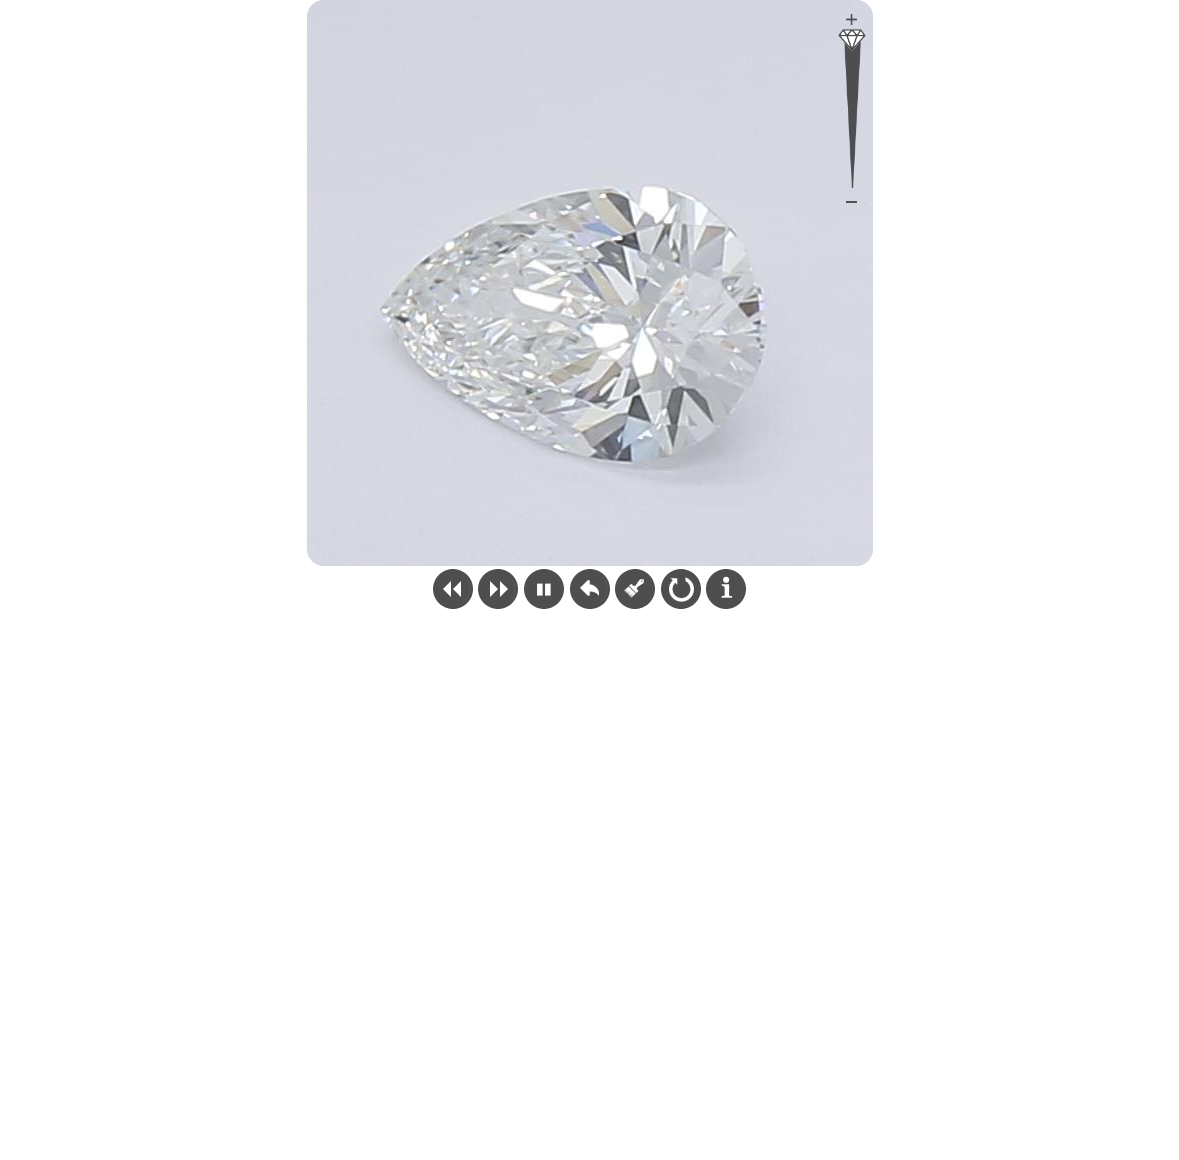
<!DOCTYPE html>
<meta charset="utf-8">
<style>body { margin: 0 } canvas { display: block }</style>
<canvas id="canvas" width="1179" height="1160"></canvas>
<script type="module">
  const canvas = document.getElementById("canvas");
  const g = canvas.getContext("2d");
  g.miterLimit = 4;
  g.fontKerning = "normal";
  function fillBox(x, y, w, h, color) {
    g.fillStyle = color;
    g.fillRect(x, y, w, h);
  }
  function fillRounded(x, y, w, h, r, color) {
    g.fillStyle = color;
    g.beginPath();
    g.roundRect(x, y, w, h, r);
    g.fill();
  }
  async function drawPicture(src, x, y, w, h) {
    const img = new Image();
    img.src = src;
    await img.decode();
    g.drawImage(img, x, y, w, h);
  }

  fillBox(0, 0, 1179, 1160, "#FFFFFF");
  fillRounded(307, 0, 566, 566, 17, "#D2D4E0");
  await drawPicture("pic1.png", 307, 0, 566, 566);
  await drawPicture("pic2.png", 307, 0, 566, 566);
  await drawPicture("pic3.png", 846, 14, 11, 11);
  await drawPicture("pic4.png", 844, 41, 17, 147);
  await drawPicture("pic5.png", 838, 29, 28, 22);
  await drawPicture("pic6.png", 846, 201, 11, 2);
  await drawPicture("pic7.png", 433, 569, 40, 40);
  await drawPicture("pic8.png", 478, 569, 40, 40);
  await drawPicture("pic9.png", 524, 569, 40, 40);
  await drawPicture("pic10.png", 570, 569, 40, 40);
  await drawPicture("pic11.png", 615, 569, 40, 40);
  await drawPicture("pic12.png", 661, 569, 40, 40);
  await drawPicture("pic13.png", 706, 569, 40, 40);
</script>
